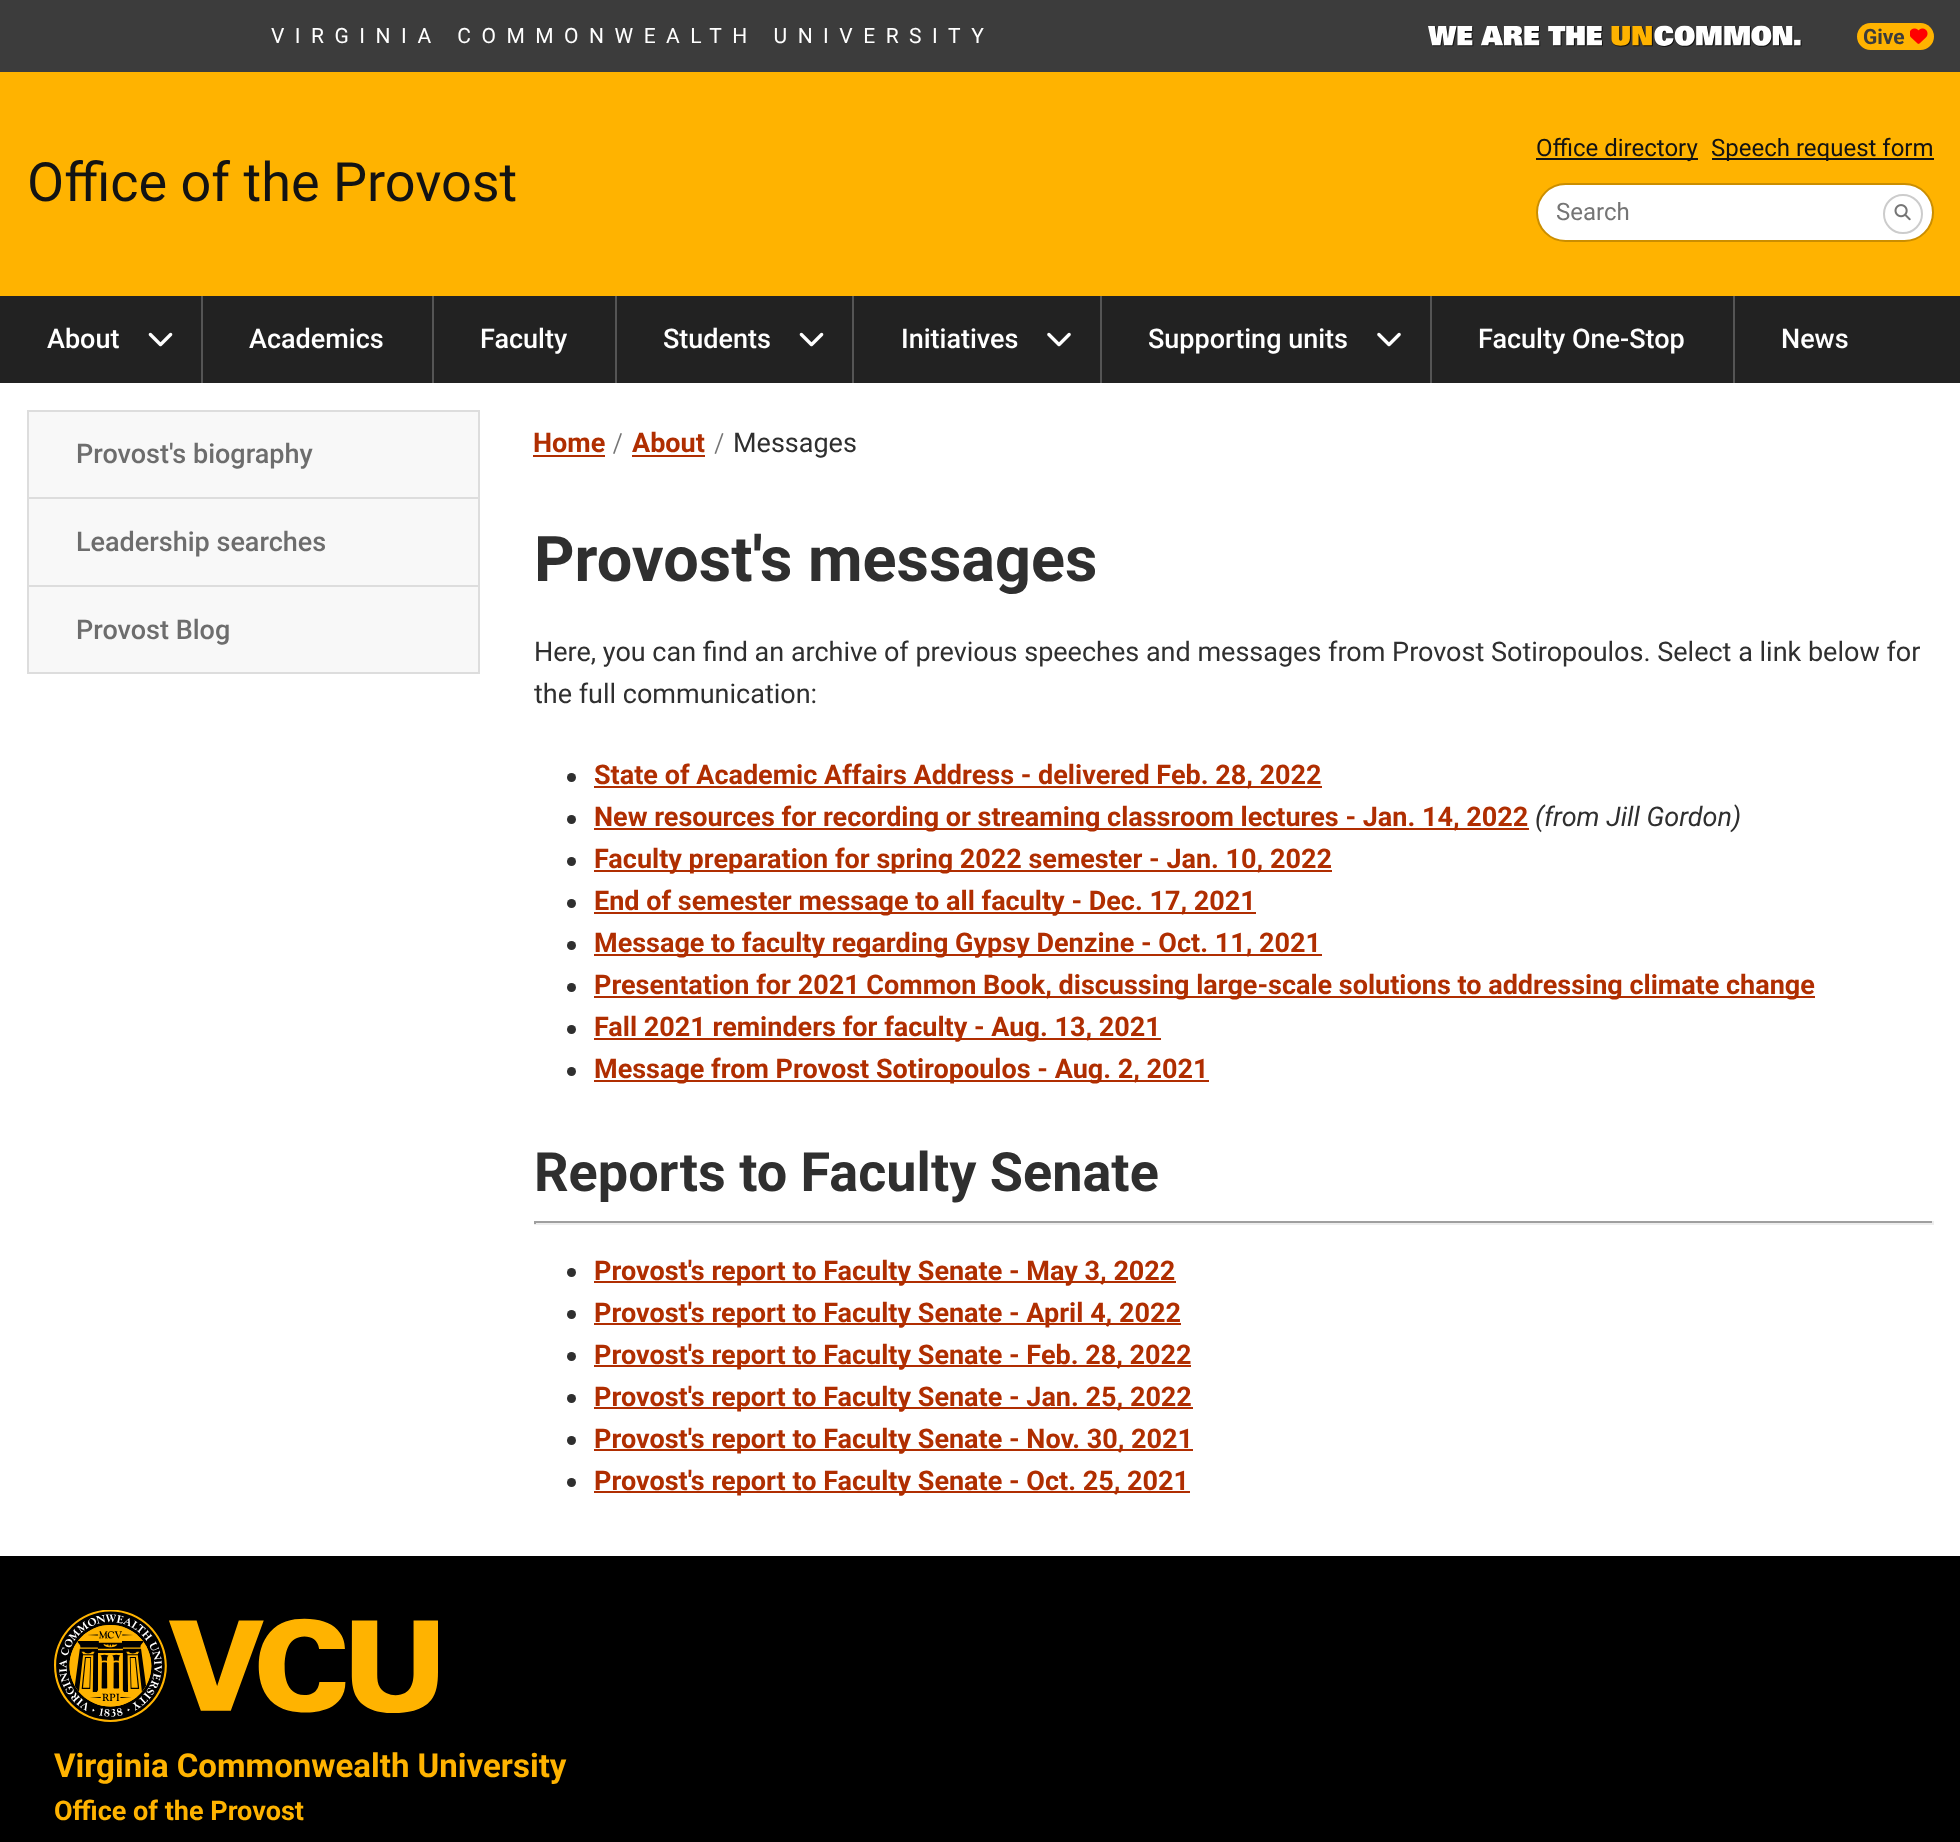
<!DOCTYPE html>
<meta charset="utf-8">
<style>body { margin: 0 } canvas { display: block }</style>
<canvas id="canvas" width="1960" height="1842"></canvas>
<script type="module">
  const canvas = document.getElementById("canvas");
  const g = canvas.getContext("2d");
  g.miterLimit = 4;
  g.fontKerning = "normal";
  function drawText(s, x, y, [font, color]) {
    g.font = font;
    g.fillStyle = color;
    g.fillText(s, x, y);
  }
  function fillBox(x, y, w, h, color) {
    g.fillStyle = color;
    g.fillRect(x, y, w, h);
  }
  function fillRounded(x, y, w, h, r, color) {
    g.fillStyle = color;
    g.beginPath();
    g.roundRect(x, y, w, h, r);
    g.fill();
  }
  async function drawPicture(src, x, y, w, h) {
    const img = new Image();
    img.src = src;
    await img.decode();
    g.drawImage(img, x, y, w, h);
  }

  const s1 = ["21px Roboto", "#FFFFFF"];
  const s2 = ["bold 21px Roboto", "#3C3C3C"];
  const s3 = ["54px Roboto", "#131313"];
  const s4 = ["24px Roboto", "#131313"];
  const s5 = ["24px Roboto", "#757575"];
  const s6 = ["500 27px Roboto", "#FFFFFF"];
  const s7 = ["500 27px Roboto", "#6D6D6D"];
  const s8 = ["bold 27px Roboto", "#B02E01"];
  const s9 = ["27px Roboto", "#2F2F2F"];
  const s10 = ["bold 63px Roboto", "#2F2F2F"];
  const s11 = ["italic 27px Roboto", "#2F2F2F"];
  const s12 = ["bold 54px Roboto", "#2F2F2F"];
  const s13 = ["bold 33px Roboto", "#FFB300"];
  const s14 = ["bold 27px Roboto", "#FFB300"];

  fillBox(0, 0, 1960, 1842, "#FFFFFF");
  fillBox(0, 0, 1960, 72, "#3C3C3C");
  g.letterSpacing = "10.5px";
  drawText("VIRGINIA COMMONWEALTH UNIVERSITY", 271, 43, s1);
  await drawPicture("pic1.png", 1428, 25, 374, 22);
  fillRounded(1857, 23, 77, 27, 13.5, "#FFB300");
  g.letterSpacing = "0px";
  drawText("Give", 1863, 44, s2);
  await drawPicture("pic2.png", 1910, 28, 18, 16);
  fillBox(0, 72, 1960, 224, "#FFB300");
  drawText("Office of the Provost", 27, 201, s3);
  fillBox(1536, 158, 162, 2, "#131313");
  drawText("Office directory", 1536, 156, s4);
  fillBox(1712, 158, 222, 2, "#131313");
  drawText("Speech request form", 1711, 156, s4);
  g.fillStyle = "#FFFFFF";
  g.beginPath();
  g.roundRect(1537, 184, 396, 57, 28.5);
  g.fill();
  g.strokeStyle = "#CB8E00";
  g.lineWidth = 2;
  g.stroke();
  drawText("Search", 1556, 220, s5);
  g.beginPath();
  g.arc(1903, 214, 19, 0, Math.PI * 2);
  g.strokeStyle = "#CCCCCC";
  g.stroke();
  await drawPicture("pic3.png", 1894, 204, 17, 17);
  fillBox(0, 296, 1960, 87, "#222222");
  fillBox(201, 296, 2, 87, "#555555");
  drawText("About", 47, 348, s6);
  await drawPicture("pic4.png", 148, 332, 25, 15);
  fillBox(432, 296, 2, 87, "#555555");
  drawText("Academics", 249, 348, s6);
  fillBox(615, 296, 2, 87, "#555555");
  drawText("Faculty", 480, 348, s6);
  fillBox(852, 296, 2, 87, "#555555");
  drawText("Students", 663, 348, s6);
  await drawPicture("pic4.png", 799, 332, 25, 15);
  fillBox(1100, 296, 2, 87, "#555555");
  drawText("Initiatives", 901, 348, s6);
  await drawPicture("pic5.png", 1047, 332, 24, 15);
  fillBox(1430, 296, 2, 87, "#555555");
  drawText("Supporting units", 1148, 348, s6);
  await drawPicture("pic5.png", 1377, 332, 24, 15);
  fillBox(1733, 296, 2, 87, "#555555");
  drawText("Faculty One-Stop", 1478, 348, s6);
  drawText("News", 1781, 348, s6);
  g.fillStyle = "#F8F8F8";
  g.beginPath();
  g.rect(28, 411, 451, 262);
  g.fill();
  g.strokeStyle = "#DDDDDD";
  g.stroke();
  fillBox(29, 497, 450, 2, "#DDDDDD");
  drawText("Provost's biography", 76, 463, s7);
  fillBox(29, 585, 450, 2, "#DDDDDD");
  drawText("Leadership searches", 76, 551, s7);
  drawText("Provost Blog", 76, 639, s7);
  drawText("Home", 533, 452, s8);
  fillBox(533, 455, 72, 2, "#B02E01");
  g.fillStyle = "#757575";
  g.beginPath();
  g.moveTo(620.5, 433);
  g.lineTo(622, 433.5);
  g.lineTo(614.5, 454);
  g.lineTo(613, 453.5);
  g.closePath();
  g.fill();
  drawText("About", 632, 452, s8);
  fillBox(632, 455, 73, 2, "#B02E01");
  g.fillStyle = "#757575";
  g.beginPath();
  g.moveTo(722, 433);
  g.lineTo(723.5, 433.5);
  g.lineTo(716, 454);
  g.lineTo(714.5, 453.5);
  g.closePath();
  g.fill();
  drawText("Messages", 733, 452, s9);
  drawText("Provost's messages", 534, 581, s10);
  drawText("Here, you can find an archive of previous speeches and messages from Provost Sotiropoulos. Select a link below for", 534, 661, s9);
  drawText("the full communication:", 534, 703, s9);
  g.beginPath();
  g.arc(571.5, 777.5, 4.5, 0, Math.PI * 2);
  g.fill();
  fillBox(594, 786, 728, 2, "#B02E01");
  drawText("State of Academic Affairs Address - delivered Feb. 28, 2022", 594, 784, s8);
  g.fillStyle = "#2F2F2F";
  g.beginPath();
  g.arc(571.5, 819.5, 4.5, 0, Math.PI * 2);
  g.fill();
  fillBox(594, 828, 935, 2, "#B02E01");
  drawText("New resources for recording or streaming classroom lectures - Jan. 14, 2022", 594, 826, s8);
  drawText("(from Jill Gordon)", 1535, 826, s11);
  g.beginPath();
  g.arc(571.5, 861.5, 4.5, 0, Math.PI * 2);
  g.fill();
  fillBox(594, 870, 738, 2, "#B02E01");
  drawText("Faculty preparation for spring 2022 semester - Jan. 10, 2022", 594, 868, s8);
  g.fillStyle = "#2F2F2F";
  g.beginPath();
  g.arc(571.5, 903.5, 4.5, 0, Math.PI * 2);
  g.fill();
  fillBox(594, 912, 662, 2, "#B02E01");
  drawText("End of semester message to all faculty - Dec. 17, 2021", 594, 910, s8);
  g.fillStyle = "#2F2F2F";
  g.beginPath();
  g.arc(571.5, 945.5, 4.5, 0, Math.PI * 2);
  g.fill();
  fillBox(594, 954, 728, 2, "#B02E01");
  drawText("Message to faculty regarding Gypsy Denzine - Oct. 11, 2021", 594, 952, s8);
  g.fillStyle = "#2F2F2F";
  g.beginPath();
  g.arc(571.5, 987.5, 4.5, 0, Math.PI * 2);
  g.fill();
  fillBox(594, 996, 1221, 2, "#B02E01");
  drawText("Presentation for 2021 Common Book, discussing large-scale solutions to addressing climate change", 594, 994, s8);
  g.fillStyle = "#2F2F2F";
  g.beginPath();
  g.arc(571.5, 1029.5, 4.5, 0, Math.PI * 2);
  g.fill();
  fillBox(594, 1038, 567, 2, "#B02E01");
  drawText("Fall 2021 reminders for faculty - Aug. 13, 2021", 594, 1036, s8);
  g.fillStyle = "#2F2F2F";
  g.beginPath();
  g.arc(571.5, 1071.5, 4.5, 0, Math.PI * 2);
  g.fill();
  fillBox(594, 1080, 615, 2, "#B02E01");
  drawText("Message from Provost Sotiropoulos - Aug. 2, 2021", 594, 1078, s8);
  drawText("Reports to Faculty Senate", 534, 1191, s12);
  fillBox(534, 1221, 1400, 2, "#9F9F9F");
  fillBox(1932, 1221, 2, 3, "#EEEEEE");
  fillBox(534, 1223, 1400, 2, "#EEEEEE");
  fillBox(534, 1221, 2, 3, "#9F9F9F");
  g.fillStyle = "#2F2F2F";
  g.beginPath();
  g.arc(571.5, 1272.5, 4.5, 0, Math.PI * 2);
  g.fill();
  fillBox(594, 1281, 582, 2, "#B02E01");
  drawText("Provost's report to Faculty Senate - May 3, 2022", 594, 1280, s8);
  g.fillStyle = "#2F2F2F";
  g.beginPath();
  g.arc(571.5, 1314.5, 4.5, 0, Math.PI * 2);
  g.fill();
  fillBox(594, 1323, 587, 2, "#B02E01");
  drawText("Provost's report to Faculty Senate - April 4, 2022", 594, 1322, s8);
  g.fillStyle = "#2F2F2F";
  g.beginPath();
  g.arc(571.5, 1356.5, 4.5, 0, Math.PI * 2);
  g.fill();
  fillBox(594, 1365, 597, 2, "#B02E01");
  drawText("Provost's report to Faculty Senate - Feb. 28, 2022", 594, 1364, s8);
  g.fillStyle = "#2F2F2F";
  g.beginPath();
  g.arc(571.5, 1398.5, 4.5, 0, Math.PI * 2);
  g.fill();
  fillBox(594, 1407, 599, 2, "#B02E01");
  drawText("Provost's report to Faculty Senate - Jan. 25, 2022", 594, 1406, s8);
  g.fillStyle = "#2F2F2F";
  g.beginPath();
  g.arc(571.5, 1440.5, 4.5, 0, Math.PI * 2);
  g.fill();
  fillBox(594, 1449, 599, 2, "#B02E01");
  drawText("Provost's report to Faculty Senate - Nov. 30, 2021", 594, 1448, s8);
  g.fillStyle = "#2F2F2F";
  g.beginPath();
  g.arc(571.5, 1482.5, 4.5, 0, Math.PI * 2);
  g.fill();
  fillBox(594, 1491, 596, 2, "#B02E01");
  drawText("Provost's report to Faculty Senate - Oct. 25, 2021", 594, 1490, s8);
  fillBox(0, 1556, 1960, 286, "#000000");
  await drawPicture("pic6.png", 54, 1610, 384, 112);
  drawText("Virginia Commonwealth University", 54, 1777, s13);
  drawText("Office of the Provost", 54, 1820, s14);
</script>
